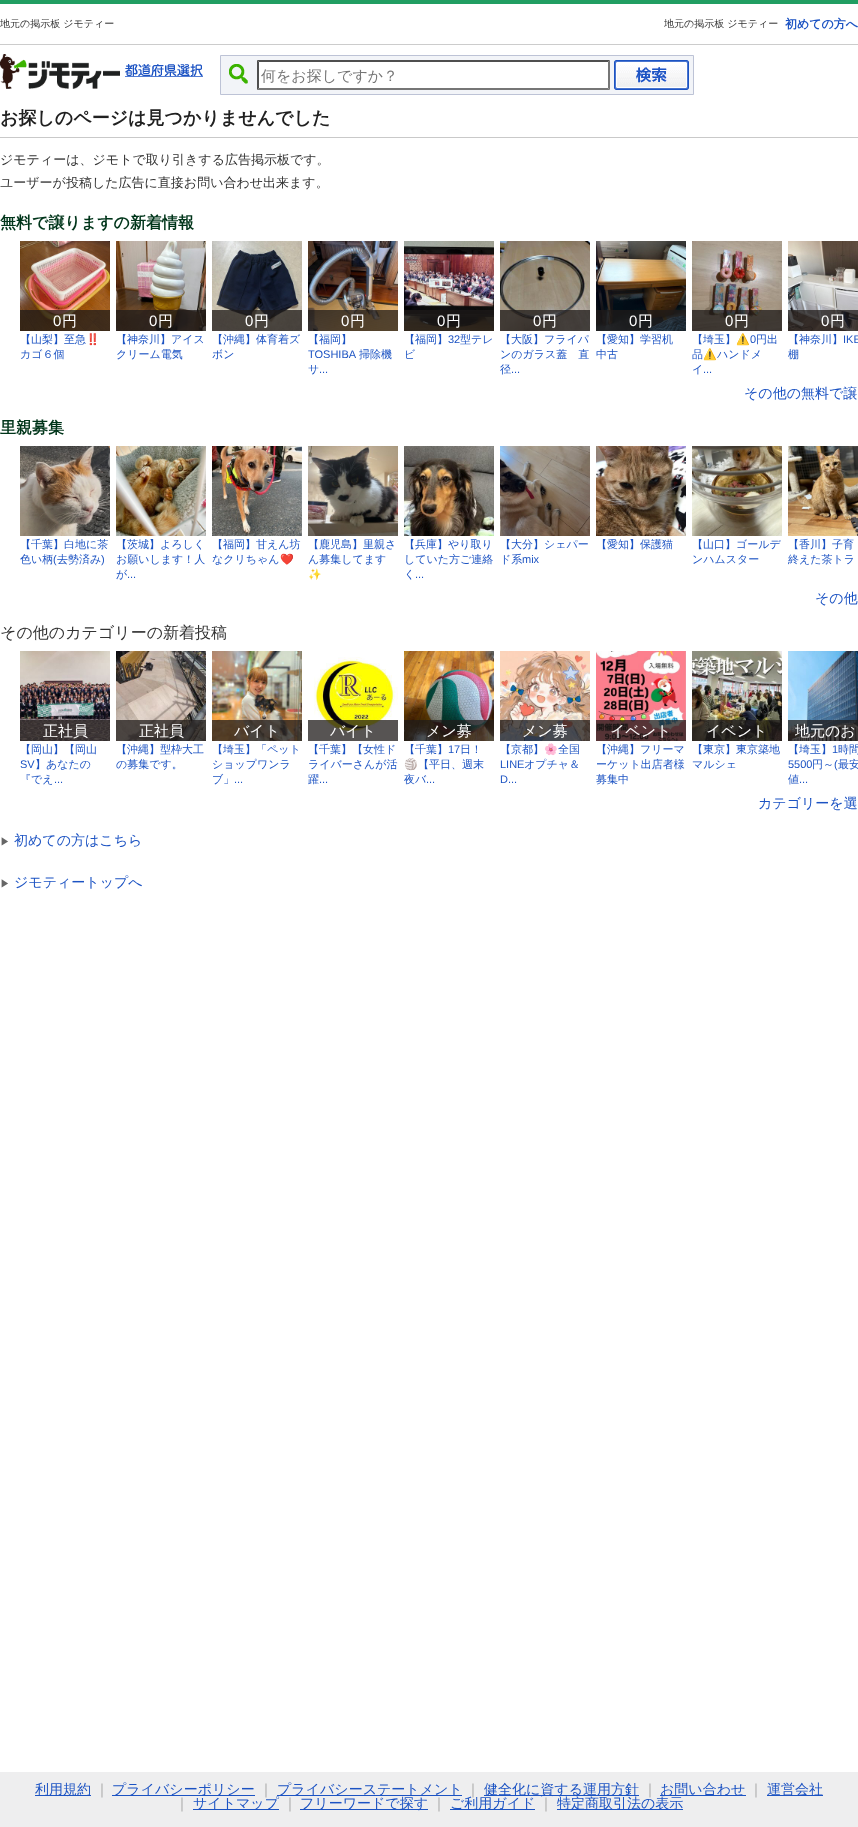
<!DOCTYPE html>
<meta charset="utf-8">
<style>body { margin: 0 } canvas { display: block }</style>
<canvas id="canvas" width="858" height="1827"></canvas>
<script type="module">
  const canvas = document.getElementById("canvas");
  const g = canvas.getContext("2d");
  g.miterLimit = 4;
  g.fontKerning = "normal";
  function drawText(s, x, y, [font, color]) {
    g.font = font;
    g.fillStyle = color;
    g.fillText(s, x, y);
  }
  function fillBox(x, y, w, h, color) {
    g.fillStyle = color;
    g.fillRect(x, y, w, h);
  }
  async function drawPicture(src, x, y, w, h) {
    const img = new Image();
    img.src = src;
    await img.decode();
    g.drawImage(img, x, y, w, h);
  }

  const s1 = ["500 10px WenQuanYi Zen Hei", "#333333"];
  const s2 = ["bold 12px WenQuanYi Zen Hei", "#1C53C3"];
  const s3 = ["500 15px WenQuanYi Zen Hei", "#757575"];
  const s4 = ["bold 18px WenQuanYi Zen Hei", "#202020"];
  const s5 = ["500 13px WenQuanYi Zen Hei", "#333333"];
  const s6 = ["bold 16px WenQuanYi Zen Hei", "#00351A"];
  const s7 = ["15px Liberation Sans", "#FFFFFF"];
  const s8 = ["500 15px WenQuanYi Zen Hei", "#FFFFFF"];
  const s9 = ["500 11px WenQuanYi Zen Hei", "#1C53C3"];
  const s10 = ["11px Noto Color Emoji", "#1C53C3"];
  const s11 = ["11px Liberation Sans", "#1C53C3"];
  const s12 = ["500 14px WenQuanYi Zen Hei", "#1C53C3"];
  const s13 = ["500 16px WenQuanYi Zen Hei", "#333333"];
  const s14 = ["500 10px WenQuanYi Zen Hei", "#666666"];
  const s15 = ["500 14px WenQuanYi Zen Hei", "#9E9E9F"];

  fillBox(0, 0, 858, 1827, "#FFFFFF");
  fillBox(0, 0, 858, 4, "#219E62");
  fillBox(0, 44, 858, 1, "#CCCCCC");
  drawText("地元の掲示板 ジモティー", 0, 27, s1);
  drawText("地元の掲示板 ジモティー", 664, 27, s1);
  drawText("初めての方へ", 785, 28, s2);
  await drawPicture("pic1.png", 0, 54, 120, 35);
  await drawPicture("pic2.png", 125, 64, 78, 13);
  g.fillStyle = "#F2F4F8";
  g.beginPath();
  g.rect(220.5, 55.5, 473, 39);
  g.fill();
  g.strokeStyle = "#BDC3D6";
  g.stroke();
  await drawPicture("pic3.png", 229, 64, 19, 20);
  fillBox(257, 60, 353, 30, "#FFFFFF");
  g.fillStyle = "#4F4F4F";
  g.beginPath();
  g.moveTo(257, 60);
  g.lineTo(610, 60);
  g.lineTo(608, 62);
  g.lineTo(259, 62);
  g.closePath();
  g.fill();
  g.fillStyle = "#767676";
  g.beginPath();
  g.moveTo(610, 60);
  g.lineTo(610, 90);
  g.lineTo(608, 88);
  g.lineTo(608, 62);
  g.closePath();
  g.fill();
  g.beginPath();
  g.moveTo(610, 90);
  g.lineTo(257, 90);
  g.lineTo(259, 88);
  g.lineTo(608, 88);
  g.closePath();
  g.fill();
  g.fillStyle = "#4F4F4F";
  g.beginPath();
  g.moveTo(257, 90);
  g.lineTo(257, 60);
  g.lineTo(259, 62);
  g.lineTo(259, 88);
  g.closePath();
  g.fill();
  drawText("何をお探しですか？", 261, 81, s3);
  fillBox(614, 60, 75, 30, "#EFEFEF");
  await drawPicture("pic4.png", 614, 60, 75, 30);
  fillBox(0, 137, 858, 1, "#C9C9C9");
  drawText("お探しのページは見つかりませんでした", 0, 124, s4);
  drawText("ジモティーは、ジモトで取り引きする広告掲示板です。", 0, 164, s5);
  drawText("ユーザーが投稿した広告に直接お問い合わせ出来ます。", 0, 187, s5);
  drawText("無料で譲りますの新着情報", 0, 228, s6);
  await drawPicture("pic5.png", 20, 241, 90, 90);
  fillBox(20, 310, 90, 21, "rgba(31, 27, 26, 0.75)");
  drawText("0", 53, 326, s7);
  drawText("円", 62, 326, s8);
  drawText("【山梨】至急", 20, 343, s9);
  drawText("‼️", 86, 343, s10);
  drawText("カゴ６個", 20, 358, s9);
  await drawPicture("pic6.png", 116, 241, 90, 90);
  fillBox(116, 310, 90, 21, "rgba(31, 27, 26, 0.75)");
  drawText("0", 149, 326, s7);
  drawText("円", 158, 326, s8);
  drawText("【神奈川】アイス", 116, 343, s9);
  drawText("クリーム電気", 116, 358, s9);
  await drawPicture("pic7.png", 212, 241, 90, 90);
  fillBox(212, 310, 90, 21, "rgba(31, 27, 26, 0.75)");
  drawText("0", 245, 326, s7);
  drawText("円", 254, 326, s8);
  drawText("【沖縄】体育着ズ", 212, 343, s9);
  drawText("ボン", 212, 358, s9);
  await drawPicture("pic8.png", 308, 241, 90, 90);
  fillBox(308, 310, 90, 21, "rgba(31, 27, 26, 0.75)");
  drawText("0", 341, 326, s7);
  drawText("円", 350, 326, s8);
  drawText("【福岡】", 308, 343, s9);
  drawText("TOSHIBA", 308, 358, s11);
  drawText("掃除機", 359, 358, s9);
  drawText("サ", 308, 373, s9);
  drawText("...", 319, 373, s11);
  await drawPicture("pic9.png", 404, 241, 90, 90);
  fillBox(404, 310, 90, 21, "rgba(31, 27, 26, 0.75)");
  drawText("0", 437, 326, s7);
  drawText("円", 446, 326, s8);
  drawText("【福岡】", 404, 343, s9);
  drawText("32", 448, 343, s11);
  drawText("型テレ", 460, 343, s9);
  drawText("ビ", 404, 358, s9);
  await drawPicture("pic10.png", 500, 241, 90, 90);
  fillBox(500, 310, 90, 21, "rgba(31, 27, 26, 0.75)");
  drawText("0", 533, 326, s7);
  drawText("円", 542, 326, s8);
  drawText("【大阪】フライパ", 500, 343, s9);
  drawText("ンのガラス蓋　直", 500, 358, s9);
  drawText("径", 500, 373, s9);
  drawText("...", 511, 373, s11);
  await drawPicture("pic11.png", 596, 241, 90, 90);
  fillBox(596, 310, 90, 21, "rgba(31, 27, 26, 0.75)");
  drawText("0", 629, 326, s7);
  drawText("円", 638, 326, s8);
  drawText("【愛知】学習机", 596, 343, s9);
  drawText("中古", 596, 358, s9);
  await drawPicture("pic12.png", 692, 241, 90, 90);
  fillBox(692, 310, 90, 21, "rgba(31, 27, 26, 0.75)");
  drawText("0", 725, 326, s7);
  drawText("円", 734, 326, s8);
  drawText("【埼玉】", 692, 343, s9);
  drawText("⚠️", 736, 343, s10);
  drawText("0", 750, 343, s11);
  drawText("円出", 756, 343, s9);
  drawText("品", 692, 358, s9);
  drawText("⚠️", 703, 358, s10);
  drawText("ハンドメ", 717, 358, s9);
  drawText("イ", 692, 373, s9);
  drawText("...", 703, 373, s11);
  await drawPicture("pic13.png", 788, 241, 70, 90);
  fillBox(788, 310, 70, 21, "rgba(31, 27, 26, 0.75)");
  drawText("0", 821, 326, s7);
  drawText("円", 830, 326, s8);
  drawText("【神奈川】", 788, 343, s9);
  drawText("IKE", 843, 343, s11);
  drawText("棚", 788, 358, s9);
  drawText("その他の無料で譲", 744, 398, s12);
  drawText("里親募集", 0, 433, s6);
  await drawPicture("pic14.png", 20, 446, 90, 90);
  drawText("【千葉】白地に茶", 20, 548, s9);
  drawText("色い柄", 20, 563, s9);
  drawText("(", 53, 563, s11);
  drawText("去勢済み", 57, 563, s9);
  drawText(")", 101, 563, s11);
  await drawPicture("pic15.png", 116, 446, 90, 90);
  drawText("【茨城】よろしく", 116, 548, s9);
  drawText("お願いします！人", 116, 563, s9);
  drawText("が", 116, 578, s9);
  drawText("...", 127, 578, s11);
  await drawPicture("pic16.png", 212, 446, 90, 90);
  drawText("【福岡】甘えん坊", 212, 548, s9);
  drawText("なクリちゃん", 212, 563, s9);
  drawText("❤️", 280, 563, s10);
  await drawPicture("pic17.png", 308, 446, 90, 90);
  drawText("【鹿児島】里親さ", 308, 548, s9);
  drawText("ん募集してます", 308, 563, s9);
  drawText("✨", 308, 578, s10);
  await drawPicture("pic18.png", 404, 446, 90, 90);
  drawText("【兵庫】やり取り", 404, 548, s9);
  drawText("していた方ご連絡", 404, 563, s9);
  drawText("く", 404, 578, s9);
  drawText("...", 415, 578, s11);
  await drawPicture("pic19.png", 500, 446, 90, 90);
  drawText("【大分】シェパー", 500, 548, s9);
  drawText("ド系", 500, 563, s9);
  drawText("mix", 522, 563, s11);
  await drawPicture("pic20.png", 596, 446, 90, 90);
  drawText("【愛知】保護猫", 596, 548, s9);
  await drawPicture("pic21.png", 692, 446, 90, 90);
  drawText("【山口】ゴールデ", 692, 548, s9);
  drawText("ンハムスター", 692, 563, s9);
  await drawPicture("pic22.png", 788, 446, 70, 90);
  drawText("【香川】子育", 788, 548, s9);
  drawText("終えた茶トラ", 788, 563, s9);
  drawText("その他", 815, 603, s12);
  drawText("その他のカテゴリーの新着投稿", 0, 638, s13);
  await drawPicture("pic23.png", 20, 651, 90, 90);
  fillBox(20, 720, 90, 21, "rgba(31, 27, 26, 0.75)");
  drawText("正社員", 43, 736, s8);
  drawText("【岡山】【岡山", 20, 753, s9);
  drawText("SV", 20, 768, s11);
  drawText("】あなたの", 35, 768, s9);
  drawText("『でえ", 20, 783, s9);
  drawText("...", 54, 783, s11);
  await drawPicture("pic24.png", 116, 651, 90, 90);
  fillBox(116, 720, 90, 21, "rgba(31, 27, 26, 0.75)");
  drawText("正社員", 139, 736, s8);
  drawText("【沖縄】型枠大工", 116, 753, s9);
  drawText("の募集です。", 116, 768, s9);
  await drawPicture("pic25.png", 212, 651, 90, 90);
  fillBox(212, 720, 90, 21, "rgba(31, 27, 26, 0.75)");
  drawText("バイト", 234, 736, s8);
  drawText("【埼玉】「ペット", 212, 753, s9);
  drawText("ショップワンラ", 212, 768, s9);
  drawText("ブ」", 212, 783, s9);
  drawText("...", 234, 783, s11);
  await drawPicture("pic26.png", 314, 657, 84, 78);
  fillBox(308, 720, 90, 21, "rgba(31, 27, 26, 0.75)");
  drawText("バイト", 330, 736, s8);
  drawText("【千葉】【女性ド", 308, 753, s9);
  drawText("ライバーさんが活", 308, 768, s9);
  drawText("躍", 308, 783, s9);
  drawText("...", 319, 783, s11);
  await drawPicture("pic27.png", 404, 651, 90, 90);
  fillBox(404, 720, 90, 21, "rgba(31, 27, 26, 0.75)");
  drawText("メン募", 426, 736, s8);
  drawText("【千葉】", 404, 753, s9);
  drawText("17", 448, 753, s11);
  drawText("日！", 460, 753, s9);
  drawText("🏐", 404, 768, s10);
  drawText("【平日、週末", 418, 768, s9);
  drawText("夜バ", 404, 783, s9);
  drawText("...", 426, 783, s11);
  await drawPicture("pic28.png", 500, 651, 90, 90);
  fillBox(500, 720, 90, 21, "rgba(31, 27, 26, 0.75)");
  drawText("メン募", 522, 736, s8);
  drawText("【京都】", 500, 753, s9);
  drawText("🌸", 544, 753, s10);
  drawText("全国", 558, 753, s9);
  drawText("LINE", 500, 768, s11);
  drawText("オプチャ＆", 524, 768, s9);
  drawText("D...", 500, 783, s11);
  await drawPicture("pic29.png", 596, 651, 90, 90);
  fillBox(596, 720, 90, 21, "rgba(31, 27, 26, 0.75)");
  drawText("イベント", 610, 736, s8);
  drawText("【沖縄】フリーマ", 596, 753, s9);
  drawText("ーケット出店者様", 596, 768, s9);
  drawText("募集中", 596, 783, s9);
  await drawPicture("pic30.png", 692, 651, 90, 90);
  fillBox(692, 720, 90, 21, "rgba(31, 27, 26, 0.75)");
  drawText("イベント", 706, 736, s8);
  drawText("【東京】東京築地", 692, 753, s9);
  drawText("マルシェ", 692, 768, s9);
  await drawPicture("pic31.png", 788, 651, 70, 90);
  fillBox(788, 720, 70, 21, "rgba(31, 27, 26, 0.75)");
  drawText("地元のお", 795, 736, s8);
  drawText("【埼玉】", 788, 753, s9);
  drawText("1", 832, 753, s11);
  drawText("時間", 838, 753, s9);
  drawText("5500", 788, 768, s11);
  drawText("円～", 812, 768, s9);
  drawText("(", 834, 768, s11);
  drawText("最安", 838, 768, s9);
  drawText("値", 788, 783, s9);
  drawText("...", 799, 783, s11);
  drawText("カテゴリーを選", 758, 808, s12);
  drawText("▶", 0, 845, s14);
  drawText("初めての方はこちら", 14, 845, s12);
  drawText("▶", 0, 887, s14);
  drawText("ジモティートップへ", 14, 887, s12);
  fillBox(0, 1772, 858, 55, "#EEEEEF");
  fillBox(35, 1795, 56, 1, "#1C53C3");
  drawText("利用規約", 35, 1794, s12);
  drawText("｜", 95, 1794, s15);
  fillBox(112, 1795, 143, 1, "#1C53C3");
  drawText("プライバシーポリシー", 112, 1794, s12);
  drawText("｜", 259, 1794, s15);
  fillBox(277, 1795, 185, 1, "#1C53C3");
  drawText("プライバシーステートメント", 277, 1794, s12);
  drawText("｜", 466, 1794, s15);
  fillBox(484, 1795, 155, 1, "#1C53C3");
  drawText("健全化に資する運用方針", 484, 1794, s12);
  drawText("｜", 643, 1794, s15);
  fillBox(660, 1795, 86, 1, "#1C53C3");
  drawText("お問い合わせ", 660, 1794, s12);
  drawText("｜", 749, 1794, s15);
  fillBox(767, 1795, 56, 1, "#1C53C3");
  drawText("運営会社", 767, 1794, s12);
  drawText("｜", 175, 1808, s15);
  fillBox(193, 1809, 86, 1, "#1C53C3");
  drawText("サイトマップ", 193, 1808, s12);
  drawText("｜", 283, 1808, s15);
  fillBox(300, 1809, 128, 1, "#1C53C3");
  drawText("フリーワードで探す", 300, 1808, s12);
  drawText("｜", 432, 1808, s15);
  fillBox(450, 1809, 85, 1, "#1C53C3");
  drawText("ご利用ガイド", 450, 1808, s12);
  drawText("｜", 539, 1808, s15);
  fillBox(557, 1809, 126, 1, "#1C53C3");
  drawText("特定商取引法の表示", 557, 1808, s12);
</script>
